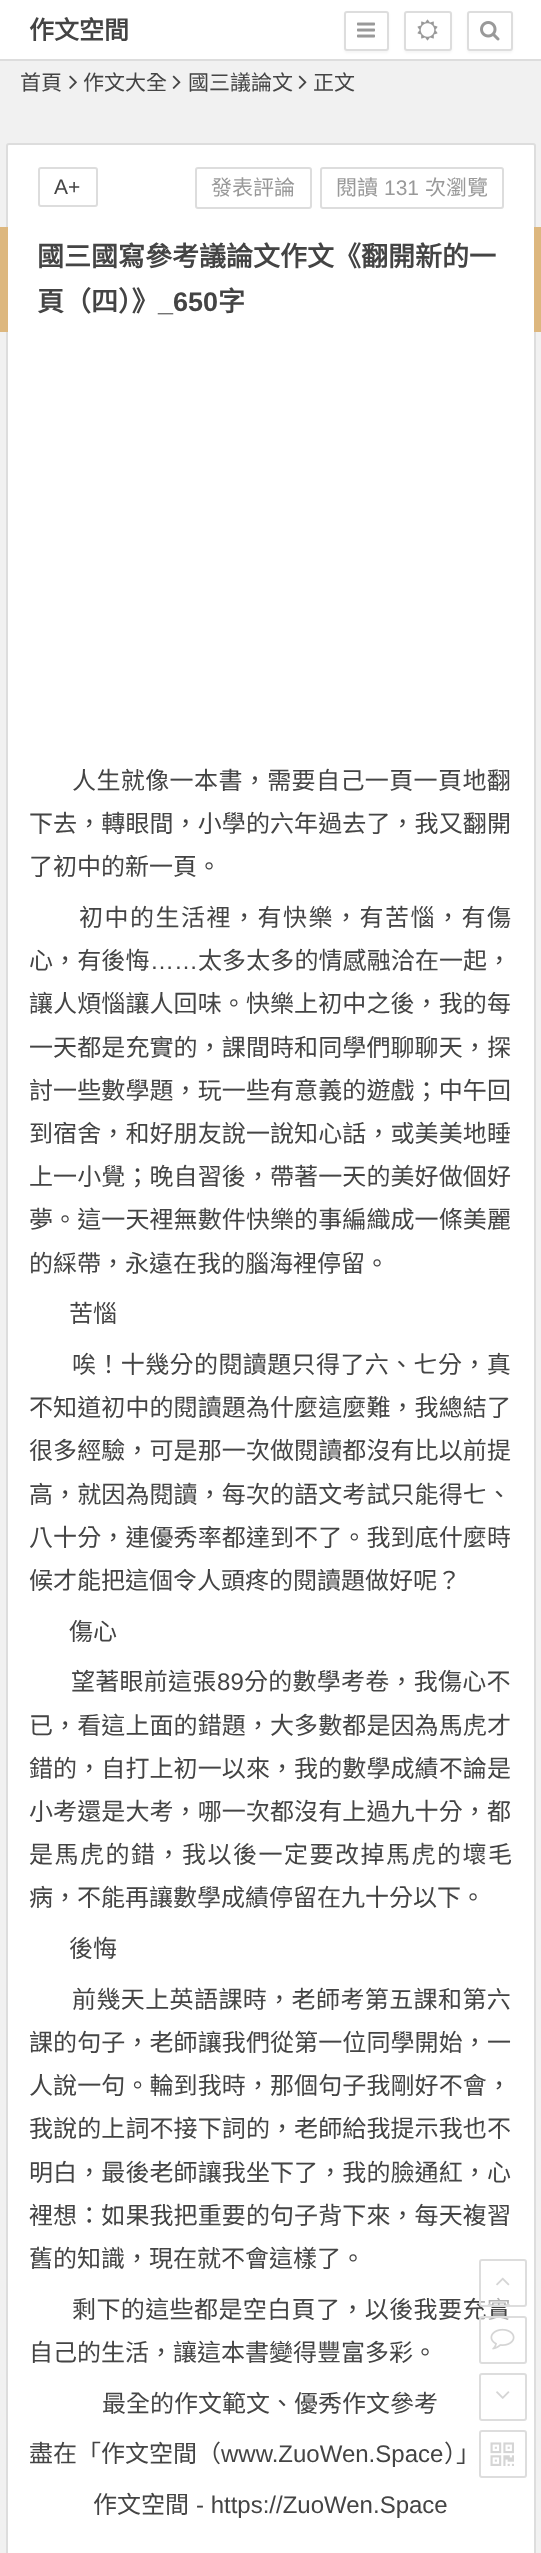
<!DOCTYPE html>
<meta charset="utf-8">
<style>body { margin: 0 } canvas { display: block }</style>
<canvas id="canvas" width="541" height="2553"></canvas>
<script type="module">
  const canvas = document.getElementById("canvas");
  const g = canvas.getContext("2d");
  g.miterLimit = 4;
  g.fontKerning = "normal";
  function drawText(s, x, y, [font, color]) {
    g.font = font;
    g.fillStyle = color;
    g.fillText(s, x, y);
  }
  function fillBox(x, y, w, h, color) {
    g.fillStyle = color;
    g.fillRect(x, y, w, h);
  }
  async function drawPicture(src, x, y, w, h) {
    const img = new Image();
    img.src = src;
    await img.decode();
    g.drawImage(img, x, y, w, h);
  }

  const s1 = ["bold 25px Noto Sans CJK TC", "#444444"];
  const s2 = ["21px Noto Sans CJK TC", "#444444"];
  const s3 = ["21px Liberation Sans", "#444444"];
  const s4 = ["21px Noto Sans CJK TC", "#999999"];
  const s5 = ["21px Liberation Sans", "#999999"];
  const s6 = ["24px Noto Sans CJK TC", "#444444"];
  const s7 = ["24px Liberation Sans", "#444444"];
  const s8 = ["bold 27px Noto Sans CJK TC", "#444444"];
  const s9 = ["bold 27px Liberation Sans", "#444444"];

  fillBox(0, 0, 541, 2553, "#F1F1F1");
  fillBox(0, 0, 541, 59, "#FFFFFF");
  fillBox(0, 59, 541, 2, "#DDDDDD");
  drawText("作文空間", 29, 39, s1);
  g.fillStyle = "rgba(0, 0, 0, 0.04)";
  g.filter = "blur(1px)";
  g.beginPath();
  g.roundRect(344, 12, 45, 41, 3);
  g.fill();
  g.filter = "none";
  g.fillStyle = "#FFFFFF";
  g.beginPath();
  g.roundRect(345, 12, 43, 38, 2);
  g.fill();
  g.strokeStyle = "#DDDDDD";
  g.lineWidth = 2;
  g.stroke();
  await drawPicture("pic1.png", 357, 22, 18, 16);
  g.fillStyle = "rgba(0, 0, 0, 0.04)";
  g.filter = "blur(1px)";
  g.beginPath();
  g.roundRect(404, 12, 48, 41, 3);
  g.fill();
  g.filter = "none";
  g.fillStyle = "#FFFFFF";
  g.beginPath();
  g.roundRect(405, 12, 46, 38, 2);
  g.fill();
  g.stroke();
  await drawPicture("pic2.png", 417, 19, 21, 22);
  g.fillStyle = "rgba(0, 0, 0, 0.04)";
  g.filter = "blur(1px)";
  g.beginPath();
  g.roundRect(467, 12, 46, 41, 3);
  g.fill();
  g.filter = "none";
  g.fillStyle = "#FFFFFF";
  g.beginPath();
  g.roundRect(468, 12, 44, 38, 2);
  g.fill();
  g.stroke();
  await drawPicture("pic3.png", 480, 21, 20, 20);
  drawText("首頁", 20, 90, s2);
  await drawPicture("pic4.png", 69, 75, 8, 14);
  drawText("作文大全", 83, 90, s2);
  await drawPicture("pic5.png", 172, 75, 9, 14);
  drawText("國三議論文", 188, 90, s2);
  await drawPicture("pic5.png", 298, 75, 9, 14);
  drawText("正文", 313, 90, s2);
  g.fillStyle = "#FFFFFF";
  g.beginPath();
  g.roundRect(7, 144, 528, 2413, 2);
  g.fill();
  g.stroke();
  g.beginPath();
  g.roundRect(39, 168, 58, 38, 2);
  g.stroke();
  drawText("A+", 54, 194, s3);
  g.beginPath();
  g.roundRect(196, 168, 115, 40, 2);
  g.stroke();
  drawText("發表評論", 211, 195, s4);
  g.beginPath();
  g.roundRect(321, 168, 182, 40, 2);
  g.stroke();
  drawText("閱讀", 336, 195, s4);
  drawText("131", 384, 195, s5);
  drawText("次瀏覽", 425, 195, s4);
  g.letterSpacing = "0.4px";
  drawText("人生就像一本書，需要自己一頁一頁地翻", 72, 789, s6);
  g.letterSpacing = "0.1px";
  drawText("下去，轉眼間，小學的六年過去了，我又翻開", 29, 832, s6);
  g.letterSpacing = "0px";
  drawText("了初中的新一頁。", 29, 875, s6);
  g.letterSpacing = "1.5px";
  drawText("初中的生活裡，有快樂，有苦惱，有傷", 79, 926, s6);
  g.letterSpacing = "0.1px";
  drawText("心，有後悔", 29, 969, s6);
  drawText("……", 150, 969, s7);
  drawText("太多太多的情感融洽在一起，", 198, 969, s6);
  drawText("讓人煩惱讓人回味。快樂上初中之後，我的每", 29, 1012, s6);
  drawText("一天都是充實的，課間時和同學們聊聊天，探", 29, 1056, s6);
  drawText("討一些數學題，玩一些有意義的遊戲；中午回", 29, 1099, s6);
  drawText("到宿舍，和好朋友說一說知心話，或美美地睡", 29, 1142, s6);
  drawText("上一小覺；晚自習後，帶著一天的美好做個好", 29, 1185, s6);
  drawText("夢。這一天裡無數件快樂的事編織成一條美麗", 29, 1228, s6);
  g.letterSpacing = "0px";
  drawText("的綵帶，永遠在我的腦海裡停留。", 29, 1272, s6);
  drawText("苦惱", 69, 1322, s6);
  g.letterSpacing = "0.4px";
  drawText("唉！十幾分的閱讀題只得了六、七分，真", 72, 1373, s6);
  g.letterSpacing = "0.1px";
  drawText("不知道初中的閱讀題為什麼這麼難，我總結了", 29, 1416, s6);
  drawText("很多經驗，可是那一次做閱讀都沒有比以前提", 29, 1459, s6);
  drawText("高，就因為閱讀，每次的語文考試只能得七、", 29, 1503, s6);
  drawText("八十分，連優秀率都達到不了。我到底什麼時", 29, 1546, s6);
  g.letterSpacing = "0px";
  drawText("候才能把這個令人頭疼的閱讀題做好呢？", 29, 1589, s6);
  drawText("傷心", 69, 1640, s6);
  g.letterSpacing = "0.25px";
  drawText("望著眼前這張", 71, 1690, s6);
  drawText("89", 217, 1690, s7);
  drawText("分的數學考卷，我傷心不", 244, 1690, s6);
  g.letterSpacing = "0.1px";
  drawText("已，看這上面的錯題，大多數都是因為馬虎才", 29, 1734, s6);
  drawText("錯的，自打上初一以來，我的數學成績不論是", 29, 1777, s6);
  drawText("小考還是大考，哪一次都沒有上過九十分，都", 29, 1820, s6);
  g.letterSpacing = "1.5px";
  drawText("是馬虎的錯，我以後一定要改掉馬虎的壞毛", 29, 1863, s6);
  g.letterSpacing = "0px";
  drawText("病，不能再讓數學成績停留在九十分以下。", 29, 1906, s6);
  drawText("後悔", 69, 1957, s6);
  g.letterSpacing = "0.4px";
  drawText("前幾天上英語課時，老師考第五課和第六", 72, 2008, s6);
  g.letterSpacing = "0.1px";
  drawText("課的句子，老師讓我們從第一位同學開始，一", 29, 2051, s6);
  drawText("人說一句。輪到我時，那個句子我剛好不會，", 29, 2094, s6);
  drawText("我說的上詞不接下詞的，老師給我提示我也不", 29, 2137, s6);
  drawText("明白，最後老師讓我坐下了，我的臉通紅，心", 29, 2181, s6);
  drawText("裡想：如果我把重要的句子背下來，每天複習", 29, 2224, s6);
  g.letterSpacing = "0px";
  drawText("舊的知識，現在就不會這樣了。", 29, 2267, s6);
  g.letterSpacing = "0.4px";
  drawText("剩下的這些都是空白頁了，以後我要充實", 72, 2318, s6);
  g.letterSpacing = "0px";
  drawText("自己的生活，讓這本書變得豐富多彩。", 29, 2361, s6);
  drawText("最全的作文範文、優秀作文參考", 102, 2412, s6);
  drawText("盡在「作文空間（", 29, 2462, s6);
  drawText("www.ZuoWen.Space", 221, 2462, s7);
  drawText("）」", 444, 2462, s6);
  drawText("作文空間", 93, 2513, s6);
  drawText("- https://ZuoWen.Space", 196, 2513, s7);
  fillBox(534, 227, 7, 105, "#DDB77E");
  fillBox(0, 227, 8, 105, "#DDB77E");
  drawText("國三國寫參考議論文作文《翻開新的一", 37, 266, s8);
  drawText("頁（四）》", 37, 311, s8);
  drawText("_650", 158, 311, s9);
  drawText("字", 218, 311, s8);
  g.fillStyle = "rgba(255, 255, 255, 0.6)";
  g.beginPath();
  g.roundRect(480, 2260, 46, 46, 2);
  g.fill();
  g.stroke();
  await drawPicture("pic6.png", 496, 2277, 14, 9);
  g.beginPath();
  g.roundRect(480, 2317, 46, 46, 2);
  g.fill();
  g.stroke();
  await drawPicture("pic7.png", 490, 2328, 25, 22);
  g.beginPath();
  g.roundRect(480, 2374, 46, 46, 2);
  g.stroke();
  await drawPicture("pic8.png", 496, 2391, 14, 8);
  g.beginPath();
  g.roundRect(480, 2431, 46, 46, 2);
  g.stroke();
  await drawPicture("pic9.png", 490, 2442, 24, 24);
</script>
